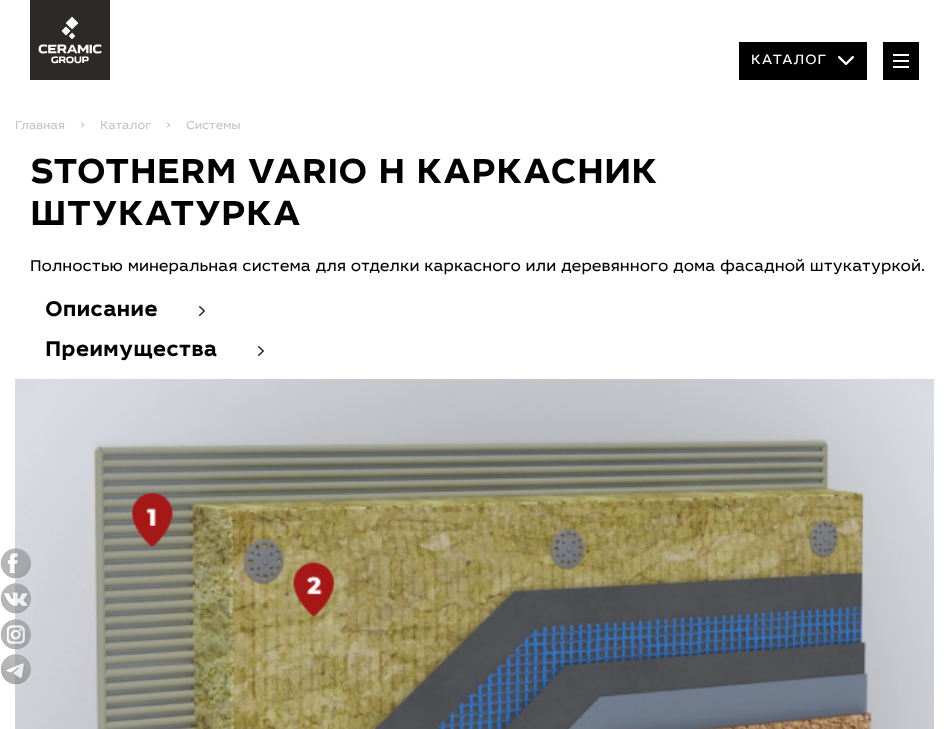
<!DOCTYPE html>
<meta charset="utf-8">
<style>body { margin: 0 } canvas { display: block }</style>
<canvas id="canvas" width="949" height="729"></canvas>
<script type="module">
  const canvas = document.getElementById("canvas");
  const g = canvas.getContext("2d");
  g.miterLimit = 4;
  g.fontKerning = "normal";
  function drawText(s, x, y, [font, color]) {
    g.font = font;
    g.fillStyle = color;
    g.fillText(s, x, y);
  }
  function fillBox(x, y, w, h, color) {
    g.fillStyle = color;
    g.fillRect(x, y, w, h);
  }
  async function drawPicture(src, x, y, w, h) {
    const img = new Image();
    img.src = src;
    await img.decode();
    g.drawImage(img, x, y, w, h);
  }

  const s1 = ["14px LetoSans", "#FFFFFF"];
  const s2 = ["12px LetoSans", "#C4C4C4"];
  const s3 = ["36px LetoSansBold", "#000000"];
  const s4 = ["16px LetoSans", "#000000"];
  const s5 = ["22px LetoSansBold", "#000000"];

  fillBox(0, 0, 949, 729, "#FFFFFF");
  await drawPicture("pic1.png", 30, 0, 80, 80);
  fillBox(739, 42, 128, 38, "#000000");
  g.letterSpacing = "1px";
  drawText("КАТАЛОГ", 751, 64, s1);
  await drawPicture("pic2.png", 838, 56, 16, 9);
  fillBox(883, 42, 36, 38, "#000000");
  fillBox(893, 54, 16, 2, "#FFFFFF");
  fillBox(893, 60, 16, 2, "#FFFFFF");
  fillBox(893, 66, 16, 2, "#FFFFFF");
  g.letterSpacing = "0px";
  drawText("Главная", 15, 129, s2);
  drawText(">", 80, 129, s2);
  drawText("Каталог", 100, 129, s2);
  drawText(">", 166, 129, s2);
  drawText("Системы", 186, 129, s2);
  drawText("STOTHERM VARIO H КАРКАСНИК", 30, 183, s3);
  drawText("ШТУКАТУРКА", 30, 225, s3);
  drawText("Полностью минеральная система для отделки каркасного или деревянного дома фасадной штукатуркой.", 30, 271, s4);
  drawText("Описание", 45, 316, s5);
  await drawPicture("pic3.png", 199, 306, 6, 10);
  drawText("Преимущества", 45, 356, s5);
  await drawPicture("pic3.png", 258, 346, 6, 10);
  await drawPicture("pic4.png", 15, 379, 919, 350);
  await drawPicture("pic5.png", 0, 548, 31, 31);
  await drawPicture("pic6.png", 0, 583, 31, 31);
  await drawPicture("pic7.png", 0, 619, 31, 31);
  await drawPicture("pic8.png", 0, 654, 31, 31);
</script>
